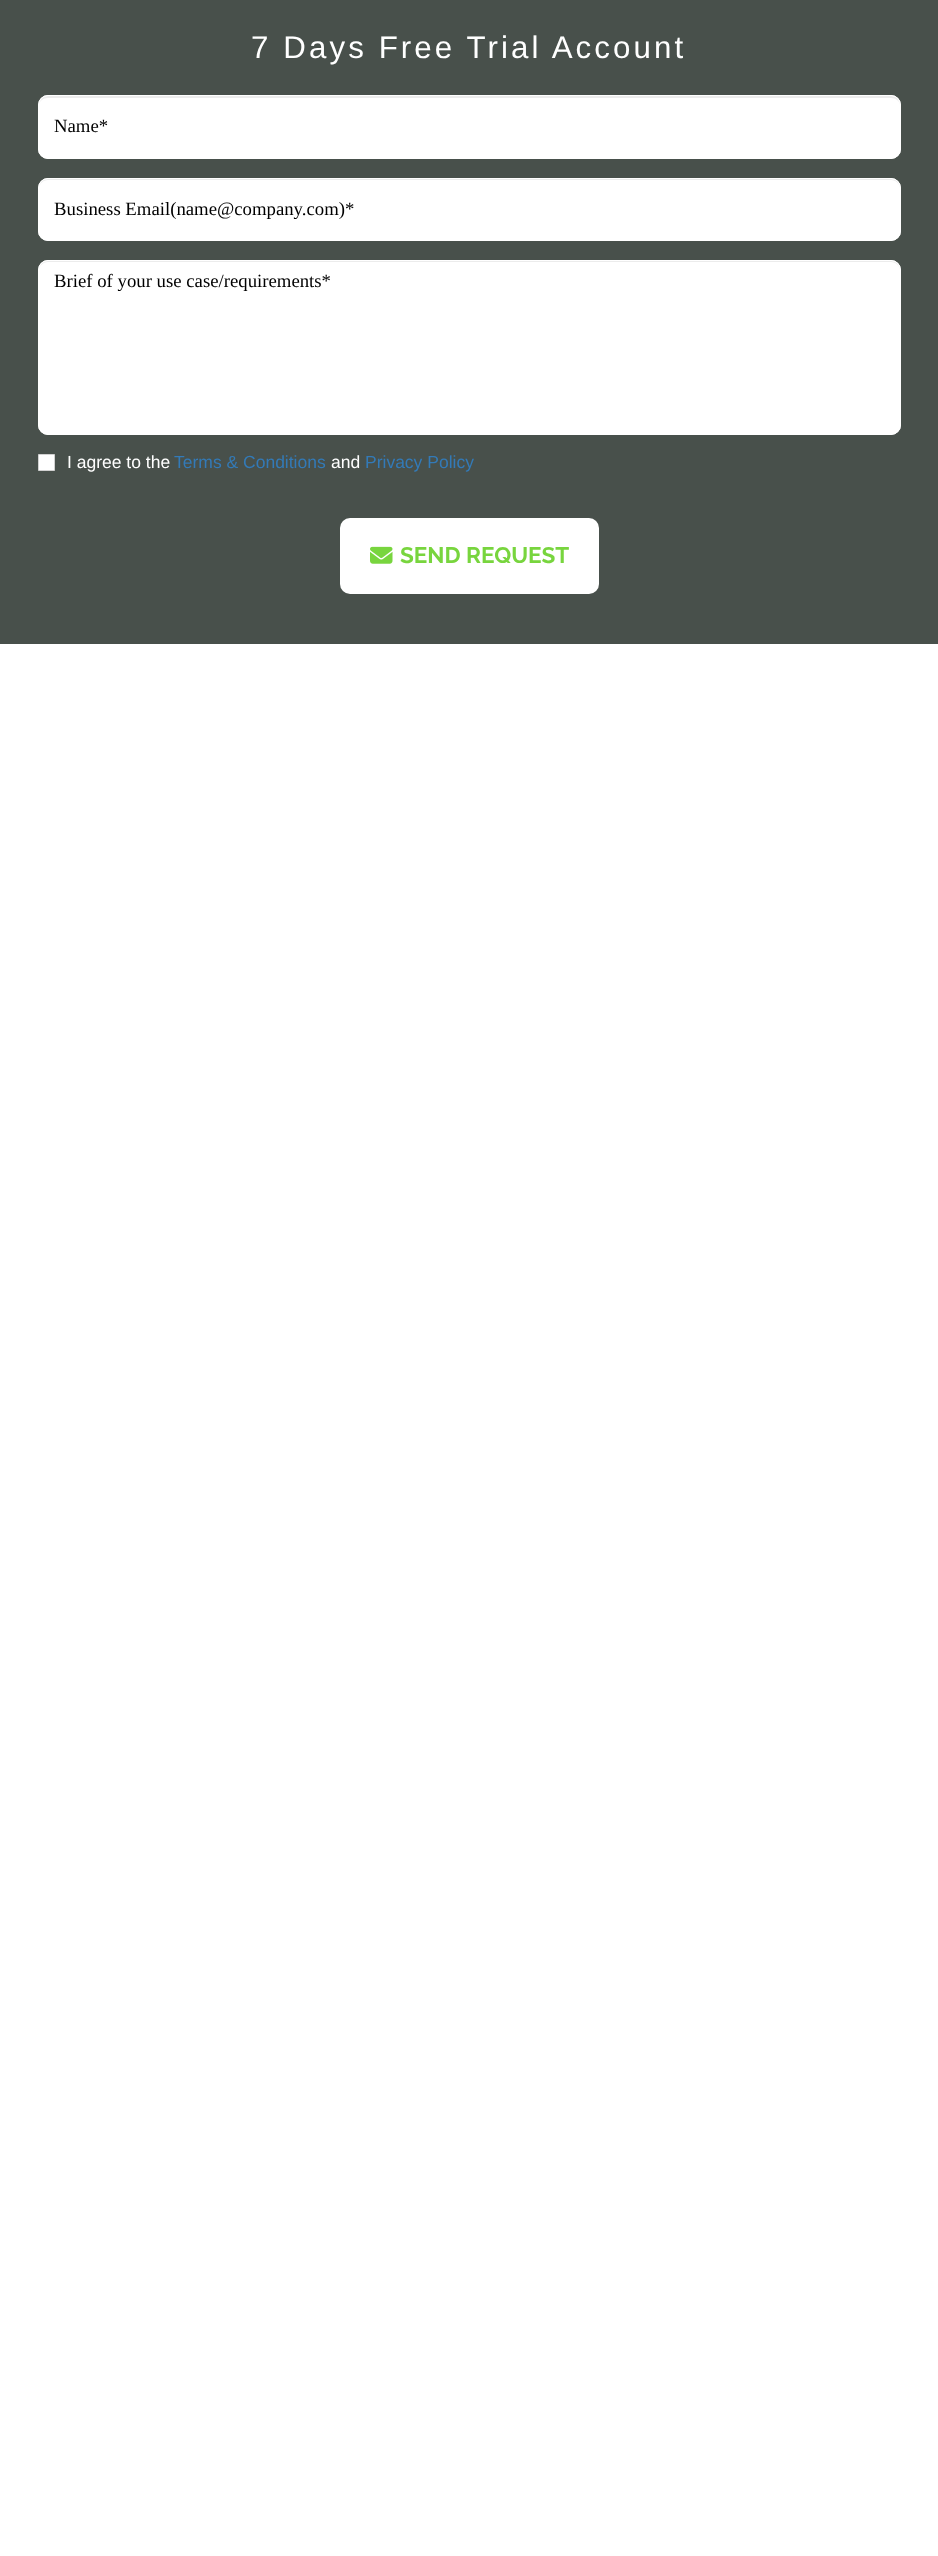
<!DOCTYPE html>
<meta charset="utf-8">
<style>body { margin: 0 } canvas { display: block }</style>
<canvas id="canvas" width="938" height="2556"></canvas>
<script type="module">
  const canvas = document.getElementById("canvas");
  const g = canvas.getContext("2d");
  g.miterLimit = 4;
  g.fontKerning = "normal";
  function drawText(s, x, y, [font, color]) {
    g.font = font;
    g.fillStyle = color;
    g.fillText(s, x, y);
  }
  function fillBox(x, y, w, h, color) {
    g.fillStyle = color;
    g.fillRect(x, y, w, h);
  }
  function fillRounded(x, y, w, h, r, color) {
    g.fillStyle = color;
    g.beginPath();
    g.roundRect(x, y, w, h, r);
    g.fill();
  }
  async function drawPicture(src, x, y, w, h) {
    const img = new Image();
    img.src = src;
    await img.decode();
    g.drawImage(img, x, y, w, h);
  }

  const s1 = ["31.25px Liberation Sans", "#FFFFFF"];
  const s2 = ["18.75px Liberation Serif", "#000000"];
  const s3 = ["17.5px Liberation Sans", "#FFFFFF"];
  const s4 = ["17.5px Liberation Sans", "#337AB7"];
  const s5 = ["bold 22.5px Raleway", "#78D53E"];

  fillBox(0, 0, 938, 2556, "#FFFFFF");
  fillBox(0, 0, 938, 644, "#48504B");
  g.letterSpacing = "3.1px";
  drawText("7 Days Free Trial Account", 251, 58, s1);
  fillRounded(38, 95, 863, 64, 10, "#FFFFFF");
  g.fillStyle = "#ECECEC";
  g.beginPath();
  g.moveTo(48, 98);
  g.lineTo(891, 98);
  g.bezierCurveTo(896, 98, 900, 101, 900, 106);
  g.bezierCurveTo(900, 101, 897, 96, 891, 96);
  g.lineTo(48, 96);
  g.bezierCurveTo(42, 96, 39, 101, 39, 106);
  g.bezierCurveTo(39, 101, 43, 98, 48, 98);
  g.closePath();
  g.fill();
  g.beginPath();
  g.roundRect(38.5, 95.5, 862, 63, 9.5);
  g.strokeStyle = "#FFFFFF";
  g.stroke();
  g.letterSpacing = "0px";
  drawText("Name*", 54, 132, s2);
  fillRounded(38, 178, 863, 63, 10, "#FFFFFF");
  g.fillStyle = "#ECECEC";
  g.beginPath();
  g.moveTo(48, 180);
  g.lineTo(891, 180);
  g.bezierCurveTo(896, 180, 900, 184, 900, 189);
  g.bezierCurveTo(900, 184, 897, 179, 891, 179);
  g.lineTo(48, 179);
  g.bezierCurveTo(42, 179, 39, 184, 39, 189);
  g.bezierCurveTo(39, 184, 43, 180, 48, 180);
  g.closePath();
  g.fill();
  g.beginPath();
  g.roundRect(38.5, 178.5, 862, 62, 9.5);
  g.stroke();
  drawText("Business Email(name@company.com)*", 54, 215, s2);
  fillRounded(38, 260, 863, 175, 10, "#FFFFFF");
  g.fillStyle = "#ECECEC";
  g.beginPath();
  g.moveTo(48, 262);
  g.lineTo(891, 262);
  g.bezierCurveTo(896, 262, 900, 266, 900, 271);
  g.bezierCurveTo(900, 266, 897, 261, 891, 261);
  g.lineTo(48, 261);
  g.bezierCurveTo(42, 261, 39, 266, 39, 271);
  g.bezierCurveTo(39, 266, 43, 262, 48, 262);
  g.closePath();
  g.fill();
  g.beginPath();
  g.roundRect(38.5, 260.5, 862, 174, 9.5);
  g.stroke();
  drawText("Brief of your use case/requirements*", 54, 287, s2);
  g.fillStyle = "#FFFFFF";
  g.beginPath();
  g.rect(38.5, 454.5, 16, 16);
  g.fill();
  g.strokeStyle = "#D1D1D1";
  g.stroke();
  drawText("I agree to the", 67, 468, s3);
  drawText("Terms & Conditions", 174, 468, s4);
  drawText("and", 331, 468, s3);
  drawText("Privacy Policy", 365, 468, s4);
  fillRounded(340, 518, 259, 76, 10, "#FFFFFF");
  await drawPicture("pic1.png", 370, 546, 23, 18);
  drawText("SEND REQUEST", 400, 563, s5);
</script>
